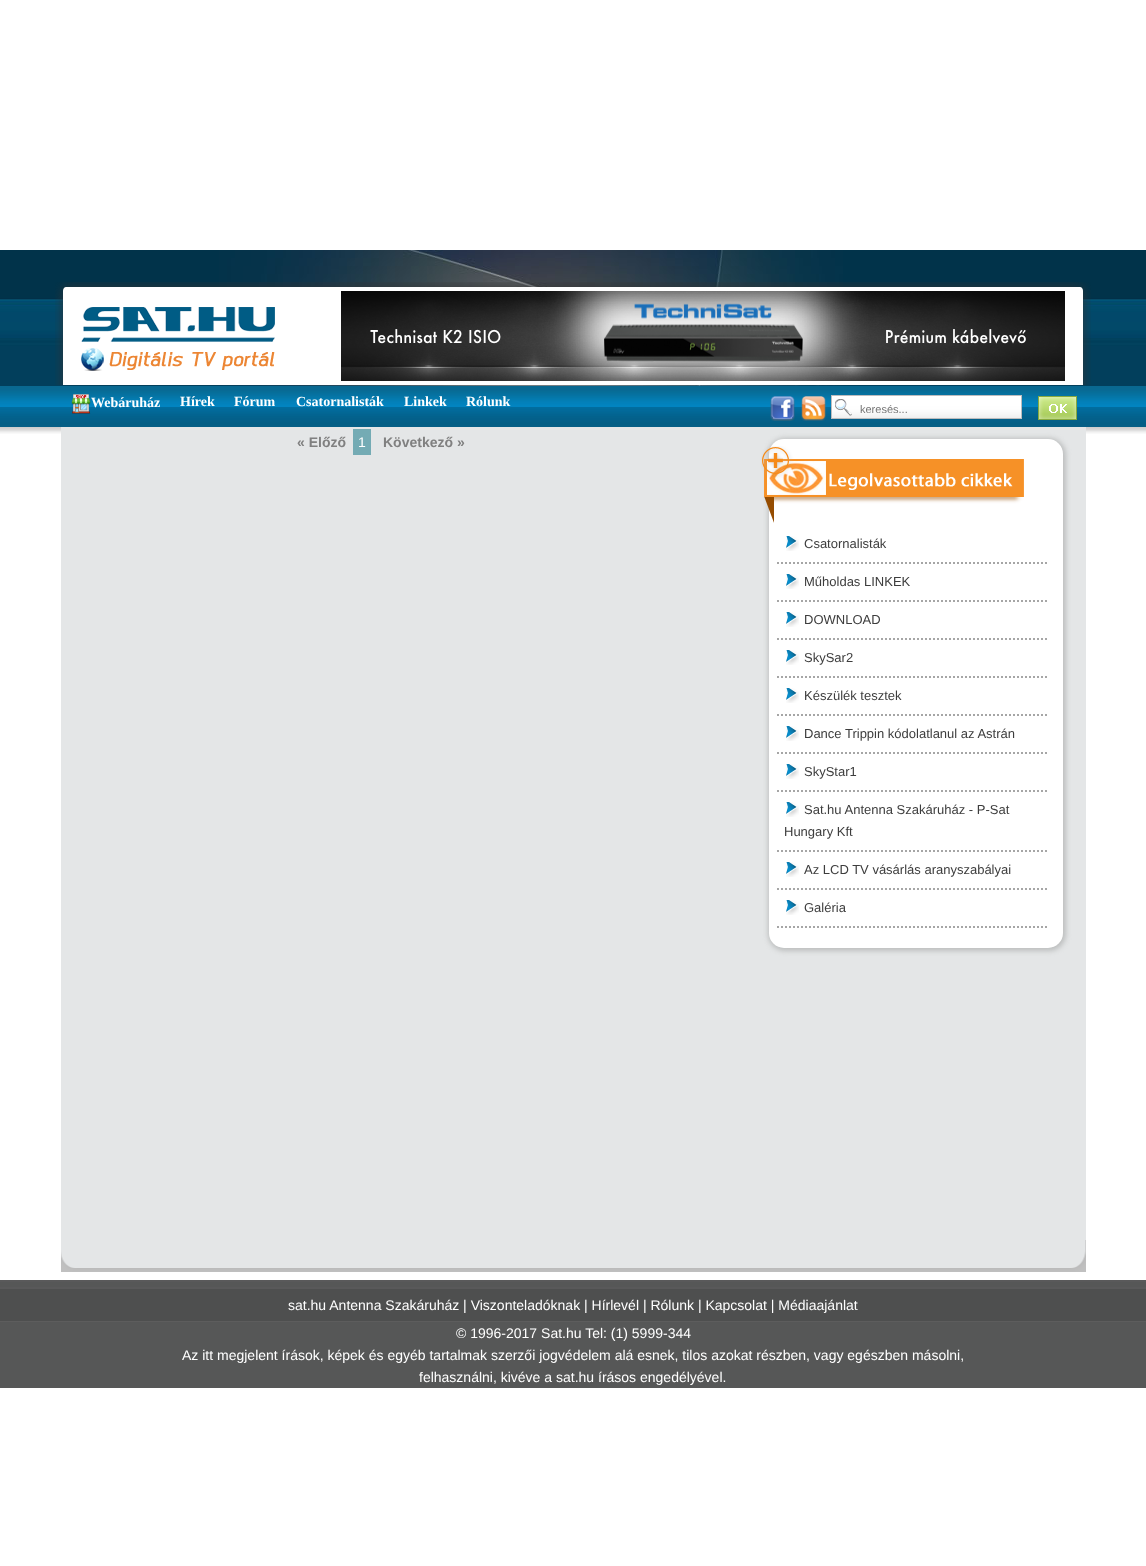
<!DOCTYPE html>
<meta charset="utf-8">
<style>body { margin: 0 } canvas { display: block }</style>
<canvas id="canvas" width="1146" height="1566"></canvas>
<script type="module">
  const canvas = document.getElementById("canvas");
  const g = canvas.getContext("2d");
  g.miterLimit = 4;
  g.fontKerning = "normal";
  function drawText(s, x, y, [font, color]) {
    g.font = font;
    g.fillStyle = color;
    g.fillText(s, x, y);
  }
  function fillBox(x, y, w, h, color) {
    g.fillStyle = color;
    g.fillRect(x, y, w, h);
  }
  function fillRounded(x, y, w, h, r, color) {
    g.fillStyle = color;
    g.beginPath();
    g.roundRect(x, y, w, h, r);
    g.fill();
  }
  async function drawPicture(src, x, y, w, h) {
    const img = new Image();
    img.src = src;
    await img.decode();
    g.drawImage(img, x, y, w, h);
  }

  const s1 = ["bold 14px Liberation Serif", "#FFFFFF"];
  const s2 = ["11px Liberation Sans", "#757575"];
  const s3 = ["bold 14px Liberation Sans", "#808080"];
  const s4 = ["14px Liberation Sans", "#FFFFFF"];
  const s5 = ["13px Liberation Sans", "#3D3D3D"];

  fillBox(0, 0, 1146, 1566, "#FFFFFF");
  await drawPicture("pic1.png", 0, 250, 1146, 136);
  await drawPicture("pic2.png", 219, 250, 624, 136);
  await drawPicture("pic3.png", 55, 282, 1036, 103);
  await drawPicture("pic4.png", 81, 307, 194, 64);
  await drawPicture("pic5.png", 341, 291, 724, 90);
  await drawPicture("pic6.png", 0, 386, 1146, 48);
  await drawPicture("pic7.png", 71, 394, 20, 20);
  drawText("Webáruház", 91, 407, s1);
  drawText("Hírek", 180, 406, s1);
  drawText("Fórum", 234, 406, s1);
  drawText("Csatornalisták", 296, 406, s1);
  drawText("Linkek", 404, 406, s1);
  drawText("Rólunk", 466, 406, s1);
  await drawPicture("pic8.png", 770, 396, 25, 25);
  await drawPicture("pic9.png", 801, 396, 25, 25);
  await drawPicture("pic10.png", 831, 395, 191, 24);
  drawText("keresés...", 860, 413, s2);
  await drawPicture("pic11.png", 1038, 396, 39, 24);
  fillBox(61, 427, 1025, 813, "#E4E6E7");
  await drawPicture("pic12.png", 61, 1240, 1025, 32);
  drawText("« Előző", 297, 447, s3);
  fillBox(353, 429, 18, 26, "#74ABB4");
  drawText("1", 358, 447, s4);
  drawText("Következő »", 383, 447, s3);
  g.fillStyle = "#BDBFBF";
  g.filter = "blur(2.5px)";
  g.beginPath();
  g.roundRect(768, 438, 298, 513, 17);
  g.fill();
  g.filter = "none";
  fillRounded(769, 439, 294, 509, 15, "#FFFFFF");
  await drawPicture("pic13.png", 761, 446, 263, 77);
  g.beginPath();
  g.moveTo(777, 563);
  g.lineTo(1049, 563);
  g.strokeStyle = "#A6A6A6";
  g.lineWidth = 2;
  g.setLineDash([2, 2]);
  g.stroke();
  await drawPicture("pic14.png", 786, 536, 13, 15);
  drawText("Csatornalisták", 804, 548, s5);
  g.beginPath();
  g.moveTo(777, 601);
  g.lineTo(1049, 601);
  g.stroke();
  await drawPicture("pic14.png", 786, 574, 13, 15);
  drawText("Műholdas LINKEK", 804, 586, s5);
  g.beginPath();
  g.moveTo(777, 639);
  g.lineTo(1049, 639);
  g.stroke();
  await drawPicture("pic14.png", 786, 612, 13, 15);
  drawText("DOWNLOAD", 804, 624, s5);
  g.beginPath();
  g.moveTo(777, 677);
  g.lineTo(1049, 677);
  g.stroke();
  await drawPicture("pic14.png", 786, 650, 13, 15);
  drawText("SkySar2", 804, 662, s5);
  g.beginPath();
  g.moveTo(777, 715);
  g.lineTo(1049, 715);
  g.stroke();
  await drawPicture("pic14.png", 786, 688, 13, 15);
  drawText("Készülék tesztek", 804, 700, s5);
  g.beginPath();
  g.moveTo(777, 753);
  g.lineTo(1049, 753);
  g.stroke();
  await drawPicture("pic14.png", 786, 726, 13, 15);
  drawText("Dance Trippin kódolatlanul az Astrán", 804, 738, s5);
  g.beginPath();
  g.moveTo(777, 791);
  g.lineTo(1049, 791);
  g.stroke();
  await drawPicture("pic14.png", 786, 764, 13, 15);
  drawText("SkyStar1", 804, 776, s5);
  g.beginPath();
  g.moveTo(777, 851);
  g.lineTo(1049, 851);
  g.stroke();
  await drawPicture("pic14.png", 786, 802, 13, 15);
  drawText("Sat.hu Antenna Szakáruház - P-Sat", 804, 814, s5);
  drawText("Hungary Kft", 784, 836, s5);
  g.beginPath();
  g.moveTo(777, 889);
  g.lineTo(1049, 889);
  g.stroke();
  await drawPicture("pic14.png", 786, 862, 13, 15);
  drawText("Az LCD TV vásárlás aranyszabályai", 804, 874, s5);
  g.beginPath();
  g.moveTo(777, 927);
  g.lineTo(1049, 927);
  g.stroke();
  await drawPicture("pic14.png", 786, 900, 13, 15);
  drawText("Galéria", 804, 912, s5);
  fillBox(0, 1282, 1146, 106, "#565757");
  fillBox(0, 1280, 1146, 2, "#59595A");
  fillBox(0, 1289, 1146, 32, "#4E4F4F");
  fillBox(0, 1287, 1146, 2, "#59595A");
  fillBox(0, 1321, 1146, 1, "#5D5D5D");
  drawText("sat.hu Antenna Szakáruház | Viszonteladóknak | Hírlevél | Rólunk | Kapcsolat | Médiaajánlat", 288, 1310, s4);
  drawText("© 1996-2017 Sat.hu Tel: (1) 5999-344", 456, 1338, s4);
  drawText("Az itt megjelent írások, képek és egyéb tartalmak szerzői jogvédelem alá esnek, tilos azokat részben, vagy egészben másolni,", 182, 1360, s4);
  drawText("felhasználni, kivéve a sat.hu írásos engedélyével.", 419, 1382, s4);
</script>
